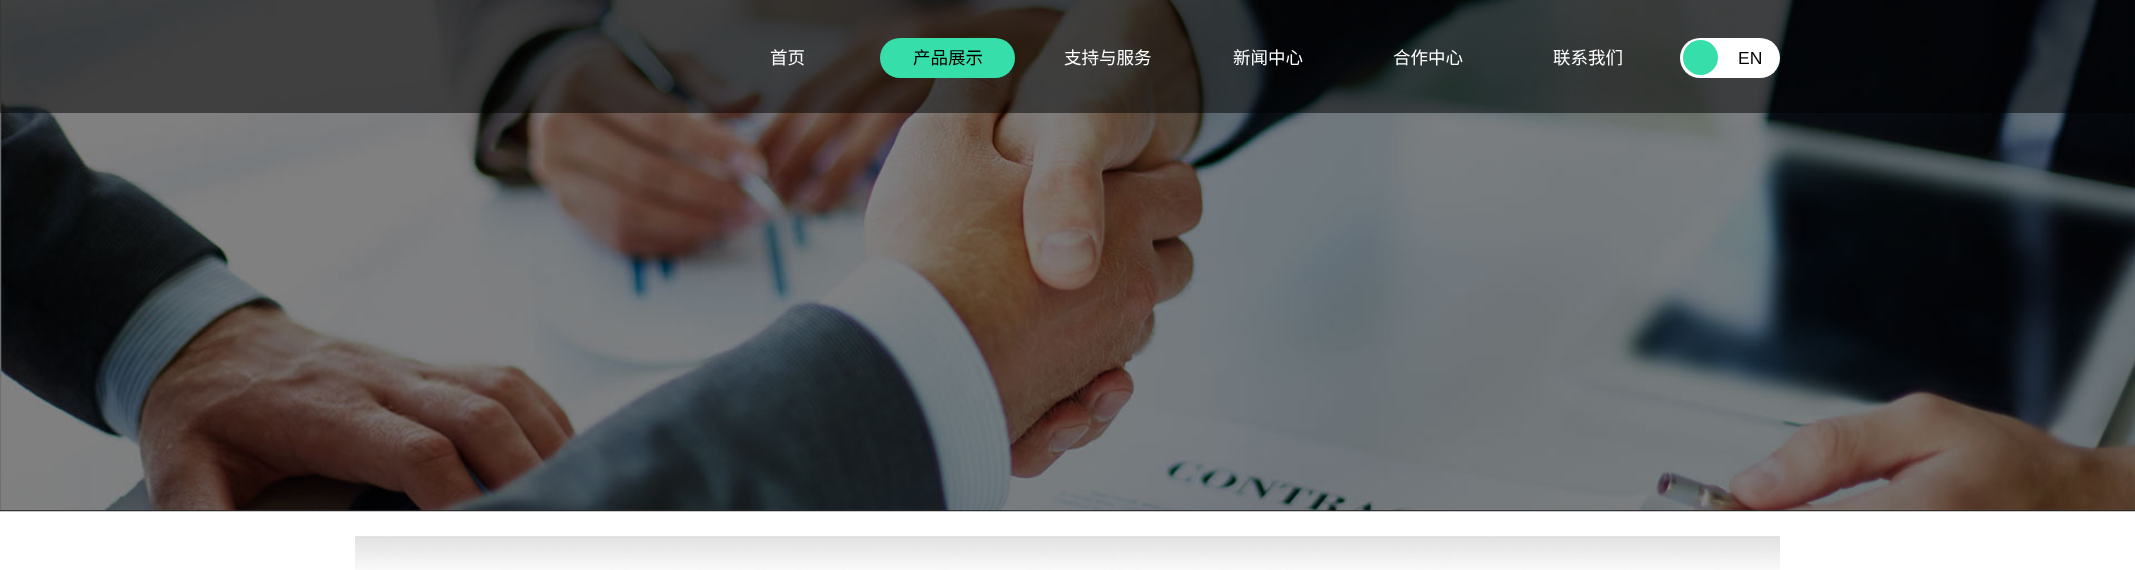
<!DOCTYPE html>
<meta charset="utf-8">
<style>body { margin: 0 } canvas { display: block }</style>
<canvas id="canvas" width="2135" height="570"></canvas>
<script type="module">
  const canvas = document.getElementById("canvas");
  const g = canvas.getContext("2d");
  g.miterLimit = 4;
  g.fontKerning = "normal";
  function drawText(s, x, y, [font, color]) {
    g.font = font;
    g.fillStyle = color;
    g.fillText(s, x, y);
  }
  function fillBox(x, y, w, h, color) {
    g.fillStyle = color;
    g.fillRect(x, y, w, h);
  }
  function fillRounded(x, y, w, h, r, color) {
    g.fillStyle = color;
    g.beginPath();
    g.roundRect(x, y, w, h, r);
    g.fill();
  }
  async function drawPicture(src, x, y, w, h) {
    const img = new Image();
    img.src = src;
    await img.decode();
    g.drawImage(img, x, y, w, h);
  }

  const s1 = ["17.5px Noto Sans CJK SC", "#FFFFFF"];
  const s2 = ["17.5px Noto Sans CJK SC", "#000000"];
  const s3 = ["17.5px Liberation Sans", "#000000"];

  fillBox(0, 0, 2135, 570, "#FFFFFF");
  await drawPicture("pic1.png", 0, 0, 2135, 512);
  fillBox(0, 0, 2135, 113, "rgba(0, 0, 0, 0.5)");
  drawText("首页", 770, 64, s1);
  fillRounded(880, 38, 135, 40, 20, "#36DEA9");
  drawText("产品展示", 913, 64, s2);
  drawText("支持与服务", 1064, 64, s1);
  drawText("新闻中心", 1233, 64, s1);
  drawText("合作中心", 1393, 64, s1);
  drawText("联系我们", 1553, 64, s1);
  fillRounded(1680, 38, 100, 40, 20, "#FFFFFF");
  g.fillStyle = "#36DEA9";
  g.beginPath();
  g.arc(1700.5, 57.5, 17.5, 0, Math.PI * 2);
  g.fill();
  drawText("EN", 1738, 64, s3);
  await drawPicture("pic2.png", 355, 536, 1425, 34);
</script>
